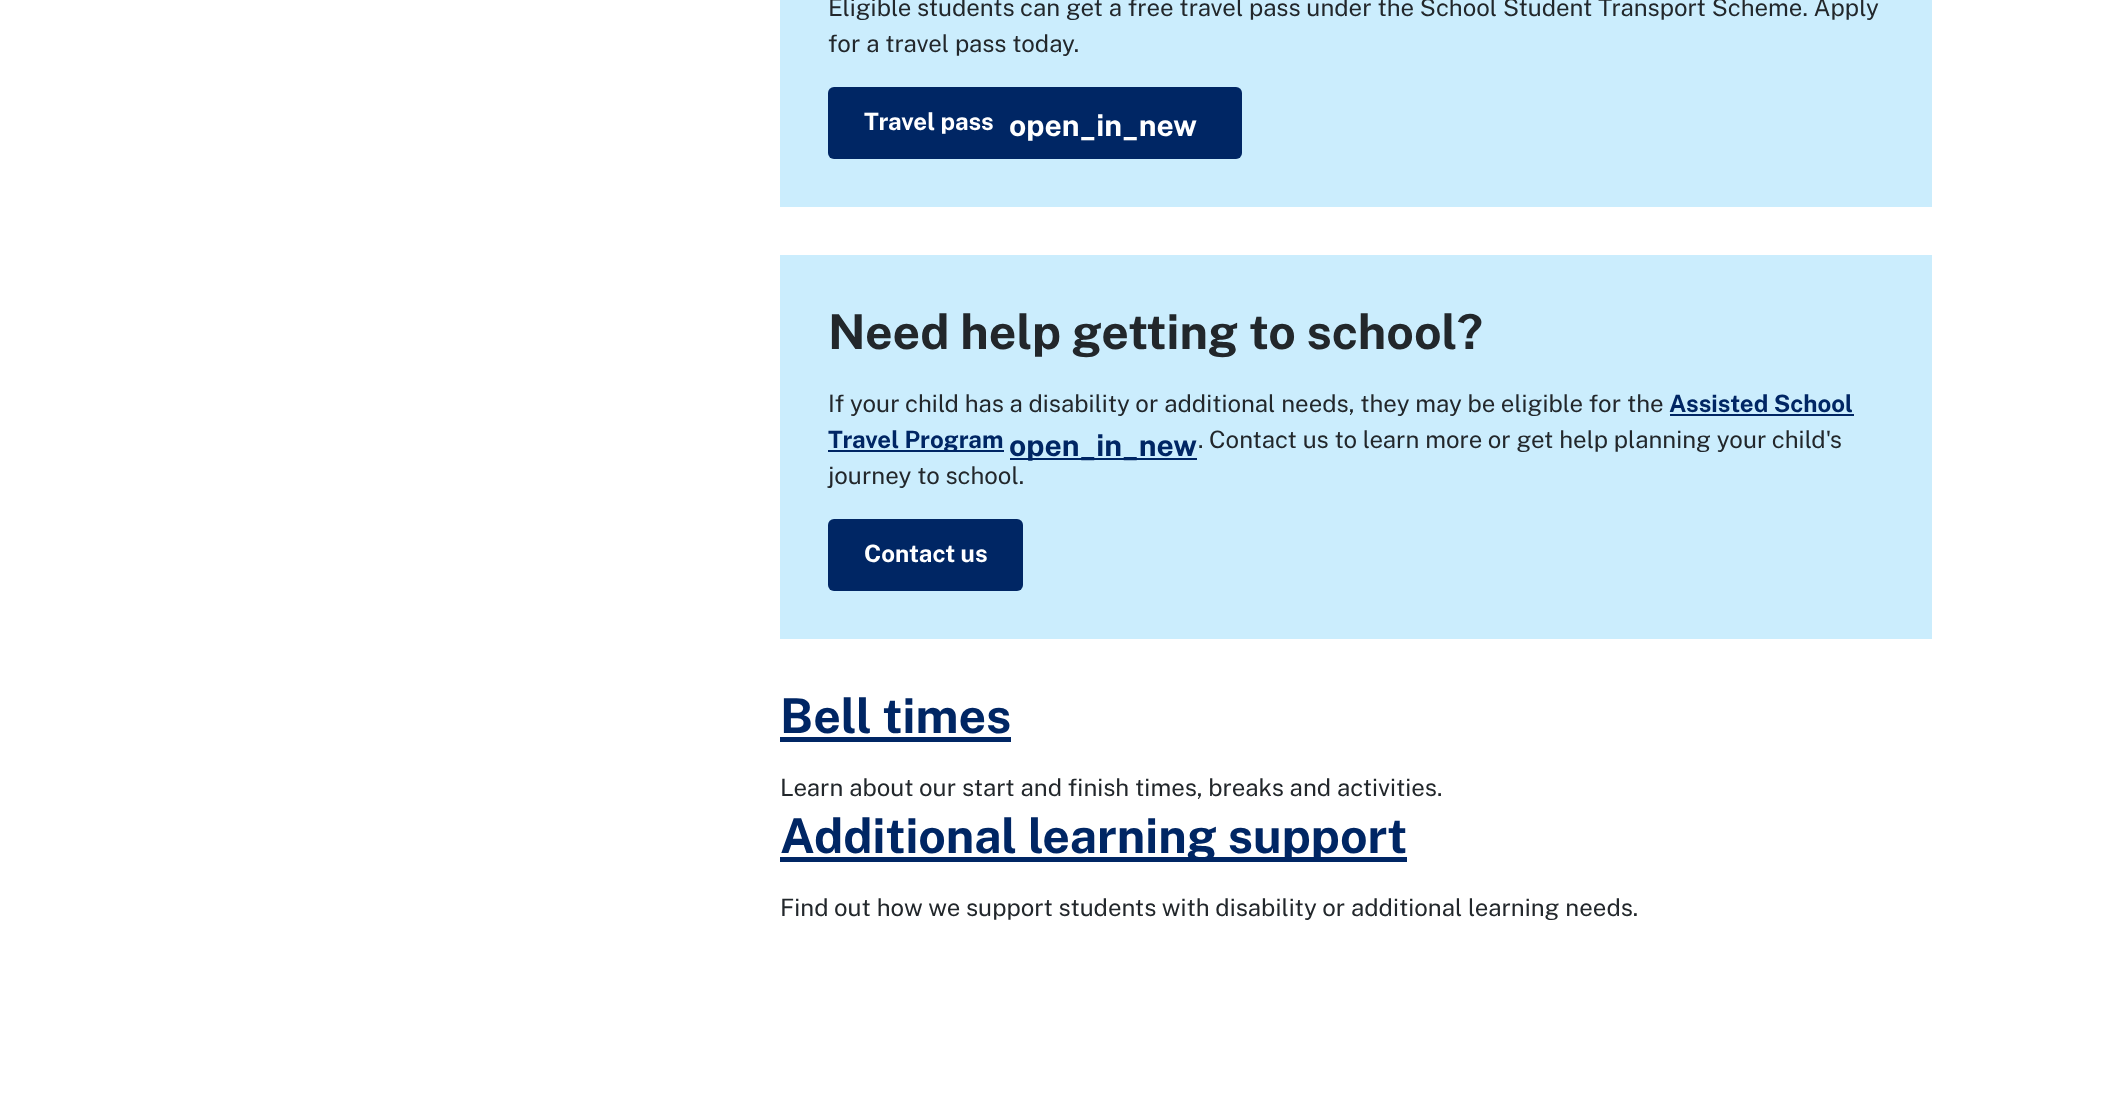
<!DOCTYPE html>
<meta charset="utf-8">
<style>body { margin: 0 } canvas { display: block }</style>
<canvas id="canvas" width="2112" height="1094"></canvas>
<script type="module">
  const canvas = document.getElementById("canvas");
  const g = canvas.getContext("2d");
  g.miterLimit = 4;
  g.fontKerning = "normal";
  function drawText(s, x, y, [font, color]) {
    g.font = font;
    g.fillStyle = color;
    g.fillText(s, x, y);
  }
  function fillBox(x, y, w, h, color) {
    g.fillStyle = color;
    g.fillRect(x, y, w, h);
  }
  function fillRounded(x, y, w, h, r, color) {
    g.fillStyle = color;
    g.beginPath();
    g.roundRect(x, y, w, h, r);
    g.fill();
  }

  const s1 = ["24px Public Sans", "#22272B"];
  const s2 = ["bold 24px Public Sans", "#FFFFFF"];
  const s3 = ["bold 30px Public Sans", "#FFFFFF"];
  const s4 = ["bold 48px Public Sans", "#22272B"];
  const s5 = ["bold 24px Public Sans", "#002664"];
  const s6 = ["bold 30px Public Sans", "#002664"];
  const s7 = ["bold 48px Public Sans", "#002664"];

  fillBox(0, 0, 2112, 1094, "#FFFFFF");
  fillBox(780, 0, 1152, 207, "#CBEDFD");
  drawText("Eligible students can get a free travel pass under the School Student Transport Scheme. Apply", 828, 16, s1);
  drawText("for a travel pass today.", 828, 52, s1);
  fillRounded(828, 87, 414, 72, 6, "#002664");
  drawText("Travel pass", 864, 130, s2);
  drawText("open_in_new", 1009, 136, s3);
  fillBox(780, 255, 1152, 384, "#CBEDFD");
  drawText("Need help getting to school?", 828, 349, s4);
  drawText("If your child has a disability or additional needs, they may be eligible for the", 828, 412, s1);
  drawText("Assisted School", 1669, 412, s5);
  fillBox(1670, 414, 184, 2, "#002664");
  fillBox(828, 450, 176, 2, "#002664");
  drawText("Travel Program", 828, 448, s5);
  fillBox(1010, 458, 187, 2, "#002664");
  drawText("open_in_new", 1009, 456, s6);
  drawText(". Contact us to learn more or get help planning your child's", 1198, 448, s1);
  drawText("journey to school.", 828, 484, s1);
  fillRounded(828, 519, 195, 72, 6, "#002664");
  drawText("Contact us", 864, 562, s2);
  drawText("Bell times", 780, 733, s7);
  fillBox(780, 737, 231, 5, "#002664");
  drawText("Learn about our start and finish times, breaks and activities.", 780, 796, s1);
  fillBox(780, 857, 627, 5, "#002664");
  drawText("Additional learning support", 780, 853, s7);
  drawText("Find out how we support students with disability or additional learning needs.", 780, 916, s1);
</script>
